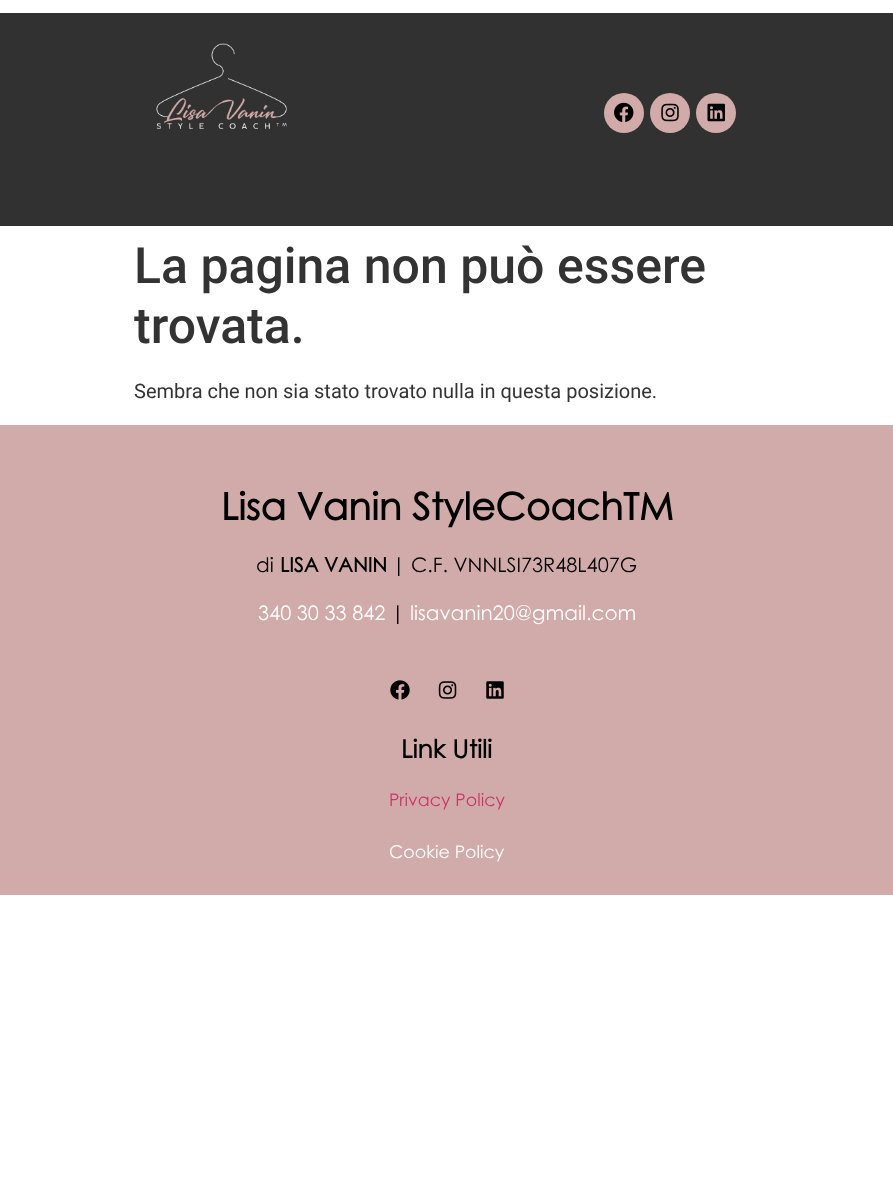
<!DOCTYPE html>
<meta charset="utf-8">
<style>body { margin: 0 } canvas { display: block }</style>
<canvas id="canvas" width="893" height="1199"></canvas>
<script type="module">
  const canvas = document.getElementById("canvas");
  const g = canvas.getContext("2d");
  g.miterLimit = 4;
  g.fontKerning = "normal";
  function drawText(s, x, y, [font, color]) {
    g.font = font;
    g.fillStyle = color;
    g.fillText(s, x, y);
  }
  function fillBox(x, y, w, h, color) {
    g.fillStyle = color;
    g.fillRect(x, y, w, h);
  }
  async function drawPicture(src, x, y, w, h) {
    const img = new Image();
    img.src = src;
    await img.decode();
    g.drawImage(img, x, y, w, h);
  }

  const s1 = ["500 50px Roboto", "#333333"];
  const s2 = ["20px Roboto", "#333333"];
  const s3 = ["bold 37.5px Century Gothic", "#000000"];
  const s4 = ["20px Century Gothic", "#000000"];
  const s5 = ["bold 20px Century Gothic", "#000000"];
  const s6 = ["20px Century Gothic", "#FFFFFF"];
  const s7 = ["bold 25px Century Gothic", "#000000"];
  const s8 = ["17.5px Century Gothic", "#CC3366"];
  const s9 = ["17.5px Century Gothic", "#FFFFFF"];

  fillBox(0, 0, 893, 1199, "#FFFFFF");
  fillBox(0, 13, 893, 213, "#313131");
  await drawPicture("pic1.png", 156, 43, 131, 86);
  g.fillStyle = "#D1ABA9";
  g.beginPath();
  g.arc(624, 113, 20, 0, Math.PI * 2);
  g.fill();
  await drawPicture("pic2.png", 614, 102, 20, 20);
  g.beginPath();
  g.arc(670, 113, 20, 0, Math.PI * 2);
  g.fill();
  await drawPicture("pic3.png", 661, 103, 18, 19);
  g.beginPath();
  g.arc(716, 113, 20, 0, Math.PI * 2);
  g.fill();
  await drawPicture("pic4.png", 707, 103, 18, 19);
  drawText("La pagina non può essere", 134, 283, s1);
  drawText("trovata.", 134, 343, s1);
  drawText("Sembra che non sia stato trovato nulla in questa posizione.", 134, 398, s2);
  fillBox(0, 425, 893, 470, "#D1ABA9");
  drawText("Lisa Vanin StyleCoachTM", 221, 520, s3);
  drawText("di", 256, 572, s4);
  drawText("LISA VANIN", 280, 572, s5);
  drawText("| C.F. VNNLSI73R48L407G", 392, 572, s4);
  drawText("340 30 33 842", 258, 620, s6);
  drawText("|", 391, 620, s4);
  drawText("lisavanin20@gmail.com", 410, 620, s6);
  await drawPicture("pic5.png", 390, 680, 20, 20);
  await drawPicture("pic6.png", 438, 681, 19, 18);
  await drawPicture("pic7.png", 486, 681, 18, 18);
  drawText("Link Utili", 401, 758, s7);
  drawText("Privacy Policy", 389, 806, s8);
  drawText("Cookie Policy", 389, 858, s9);
</script>
